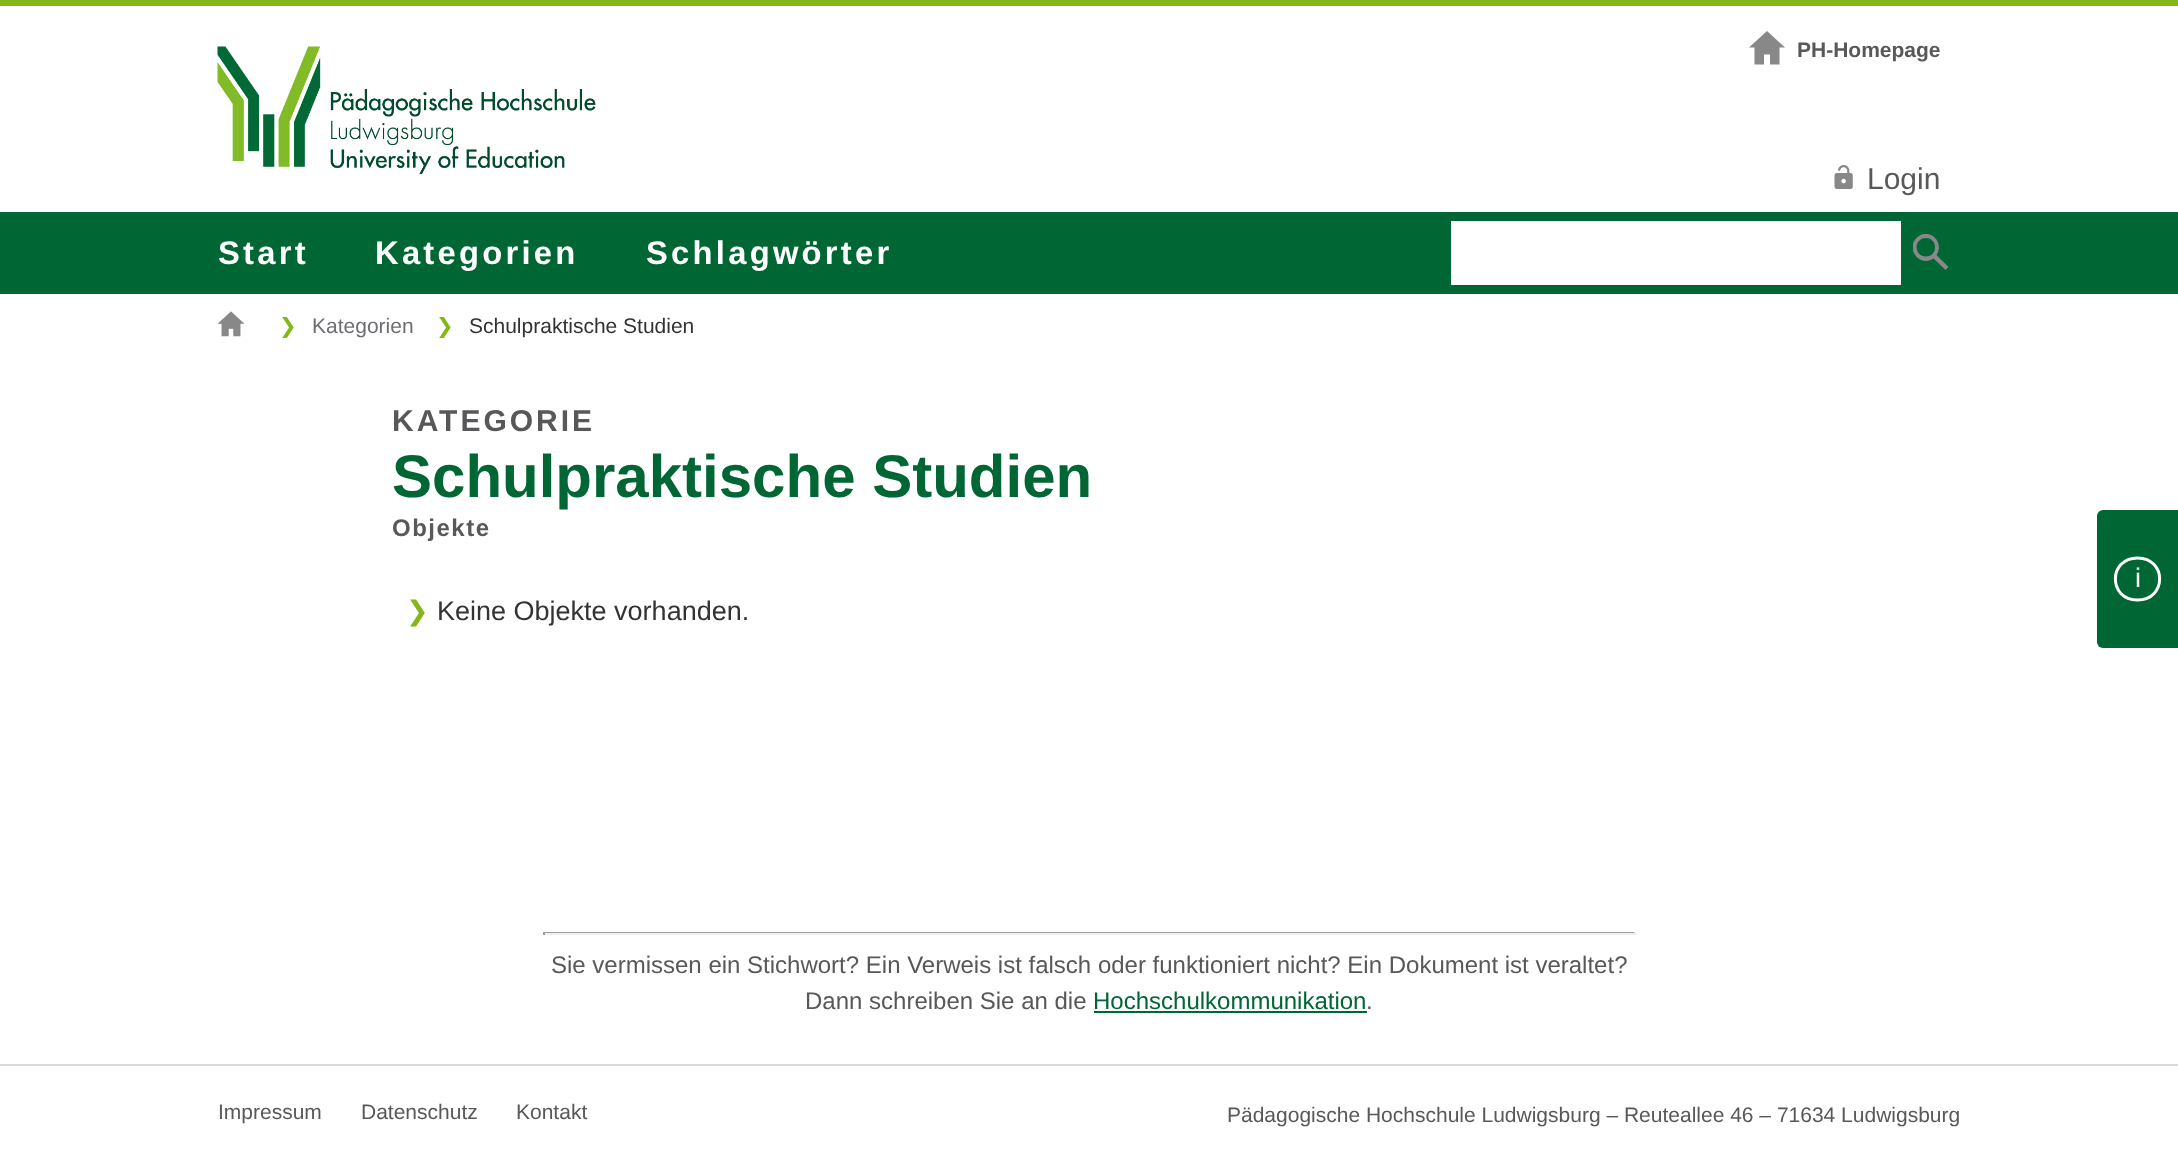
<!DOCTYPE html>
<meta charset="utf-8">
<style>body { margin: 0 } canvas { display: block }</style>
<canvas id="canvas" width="2178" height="1163"></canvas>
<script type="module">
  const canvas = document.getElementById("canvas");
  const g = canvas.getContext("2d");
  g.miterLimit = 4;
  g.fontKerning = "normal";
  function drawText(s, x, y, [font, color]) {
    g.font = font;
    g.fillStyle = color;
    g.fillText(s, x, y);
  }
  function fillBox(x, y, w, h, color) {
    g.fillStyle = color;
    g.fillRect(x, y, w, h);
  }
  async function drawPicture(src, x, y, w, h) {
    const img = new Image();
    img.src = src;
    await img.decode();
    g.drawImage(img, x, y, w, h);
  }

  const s1 = ["bold 21px Liberation Sans", "#58585A"];
  const s2 = ["30px Liberation Sans", "#58585A"];
  const s3 = ["bold 32.75px Liberation Sans", "#FFFFFF"];
  const s4 = ["21px DejaVu Sans", "#84B819"];
  const s5 = ["21px Liberation Sans", "#6D6E71"];
  const s6 = ["21px Liberation Sans", "#333333"];
  const s7 = ["bold 30px Liberation Sans", "#58585A"];
  const s8 = ["bold 60px Liberation Sans", "#006633"];
  const s9 = ["bold 24px Liberation Sans", "#58585A"];
  const s10 = ["27px DejaVu Sans", "#84B819"];
  const s11 = ["27px Liberation Sans", "#333333"];
  const s12 = ["27px Liberation Sans", "#FFFFFF"];
  const s13 = ["24px Liberation Sans", "#58585A"];
  const s14 = ["24px Liberation Sans", "#006633"];
  const s15 = ["21px Liberation Sans", "#58585A"];

  fillBox(0, 0, 2178, 1163, "#FFFFFF");
  fillBox(0, 0, 2178, 6, "#84B819");
  await drawPicture("pic1.png", 217, 46, 379, 128);
  g.fillStyle = "#888888";
  g.beginPath();
  g.moveTo(1764, 64.5);
  g.lineTo(1764, 54.5);
  g.lineTo(1770, 54.5);
  g.lineTo(1770, 64.5);
  g.lineTo(1779.5, 64.5);
  g.lineTo(1779.5, 47.5);
  g.lineTo(1785, 47.5);
  g.lineTo(1767, 31);
  g.lineTo(1749, 47.5);
  g.lineTo(1754.5, 47.5);
  g.lineTo(1754.5, 64.5);
  g.closePath();
  g.fill();
  drawText("PH-Homepage", 1797, 57, s1);
  await drawPicture("pic2.png", 1834, 165, 19, 24);
  drawText("Login", 1867, 189, s2);
  fillBox(0, 212, 2178, 82, "#006633");
  g.letterSpacing = "3.25px";
  drawText("Start", 218, 264, s3);
  drawText("Kategorien", 375, 264, s3);
  drawText("Schlagwörter", 646, 264, s3);
  fillBox(1451, 221, 450, 64, "#FFFFFF");
  g.save();
  g.beginPath();
  g.rect(1913, 234, 36, 36);
  g.clip();
  g.fillStyle = "#888888";
  g.beginPath();
  g.moveTo(1936.5, 255);
  g.bezierCurveTo(1945.5, 241, 1927.5, 226.5, 1916.5, 238);
  g.bezierCurveTo(1905, 249.5, 1920.5, 267.5, 1933.5, 258.5);
  g.lineTo(1945.5, 270);
  g.lineTo(1948.5, 267);
  g.closePath();
  g.moveTo(1926, 256.5);
  g.bezierCurveTo(1913.5, 256.5, 1913.5, 238, 1926, 238);
  g.bezierCurveTo(1938, 238, 1938, 256.5, 1926, 256.5);
  g.closePath();
  g.fill();
  g.restore();
  await drawPicture("pic3.png", 218, 311, 27, 26);
  g.letterSpacing = "0px";
  drawText("❯", 279, 333, s4);
  drawText("Kategorien", 312, 333, s5);
  drawText("❯", 436, 333, s4);
  drawText("Schulpraktische Studien", 469, 333, s6);
  g.letterSpacing = "3px";
  drawText("KATEGORIE", 392, 431, s7);
  g.letterSpacing = "0px";
  drawText("Schulpraktische Studien", 392, 497, s8);
  g.letterSpacing = "1.5px";
  drawText("Objekte", 392, 536, s9);
  g.letterSpacing = "0px";
  drawText("❯", 406, 620, s10);
  drawText("Keine Objekte vorhanden.", 437, 620, s11);
  g.fillStyle = "#006633";
  g.beginPath();
  g.roundRect(2097, 510, 81, 138, [6, 0, 0, 6]);
  g.fill();
  g.beginPath();
  g.moveTo(2137.5, 558);
  g.bezierCurveTo(2167, 558, 2167, 600, 2137.5, 600);
  g.bezierCurveTo(2108, 600, 2108, 558, 2137.5, 558);
  g.closePath();
  g.strokeStyle = "#FFFFFF";
  g.lineWidth = 3;
  g.stroke();
  drawText("i", 2135, 587, s12);
  fillBox(543, 932, 1092, 1, "#9F9F9F");
  fillBox(1634, 932, 2, 3, "#EEEEEE");
  fillBox(543, 933, 1092, 2, "#EEEEEE");
  fillBox(543, 932, 2, 3, "#9F9F9F");
  drawText("Sie vermissen ein Stichwort? Ein Verweis ist falsch oder funktioniert nicht? Ein Dokument ist veraltet?", 551, 973, s13);
  drawText("Dann schreiben Sie an die", 805, 1009, s13);
  drawText("Hochschulkommunikation", 1093, 1009, s14);
  fillBox(1094, 1011, 273, 2, "#006633");
  drawText(".", 1366, 1009, s13);
  fillBox(0, 1064, 2178, 2, "#D9D9D9");
  drawText("Impressum", 218, 1119, s15);
  drawText("Datenschutz", 361, 1119, s15);
  drawText("Kontakt", 516, 1119, s15);
  drawText("Pädagogische Hochschule Ludwigsburg – Reuteallee 46 – 71634 Ludwigsburg", 1227, 1122, s15);
</script>
